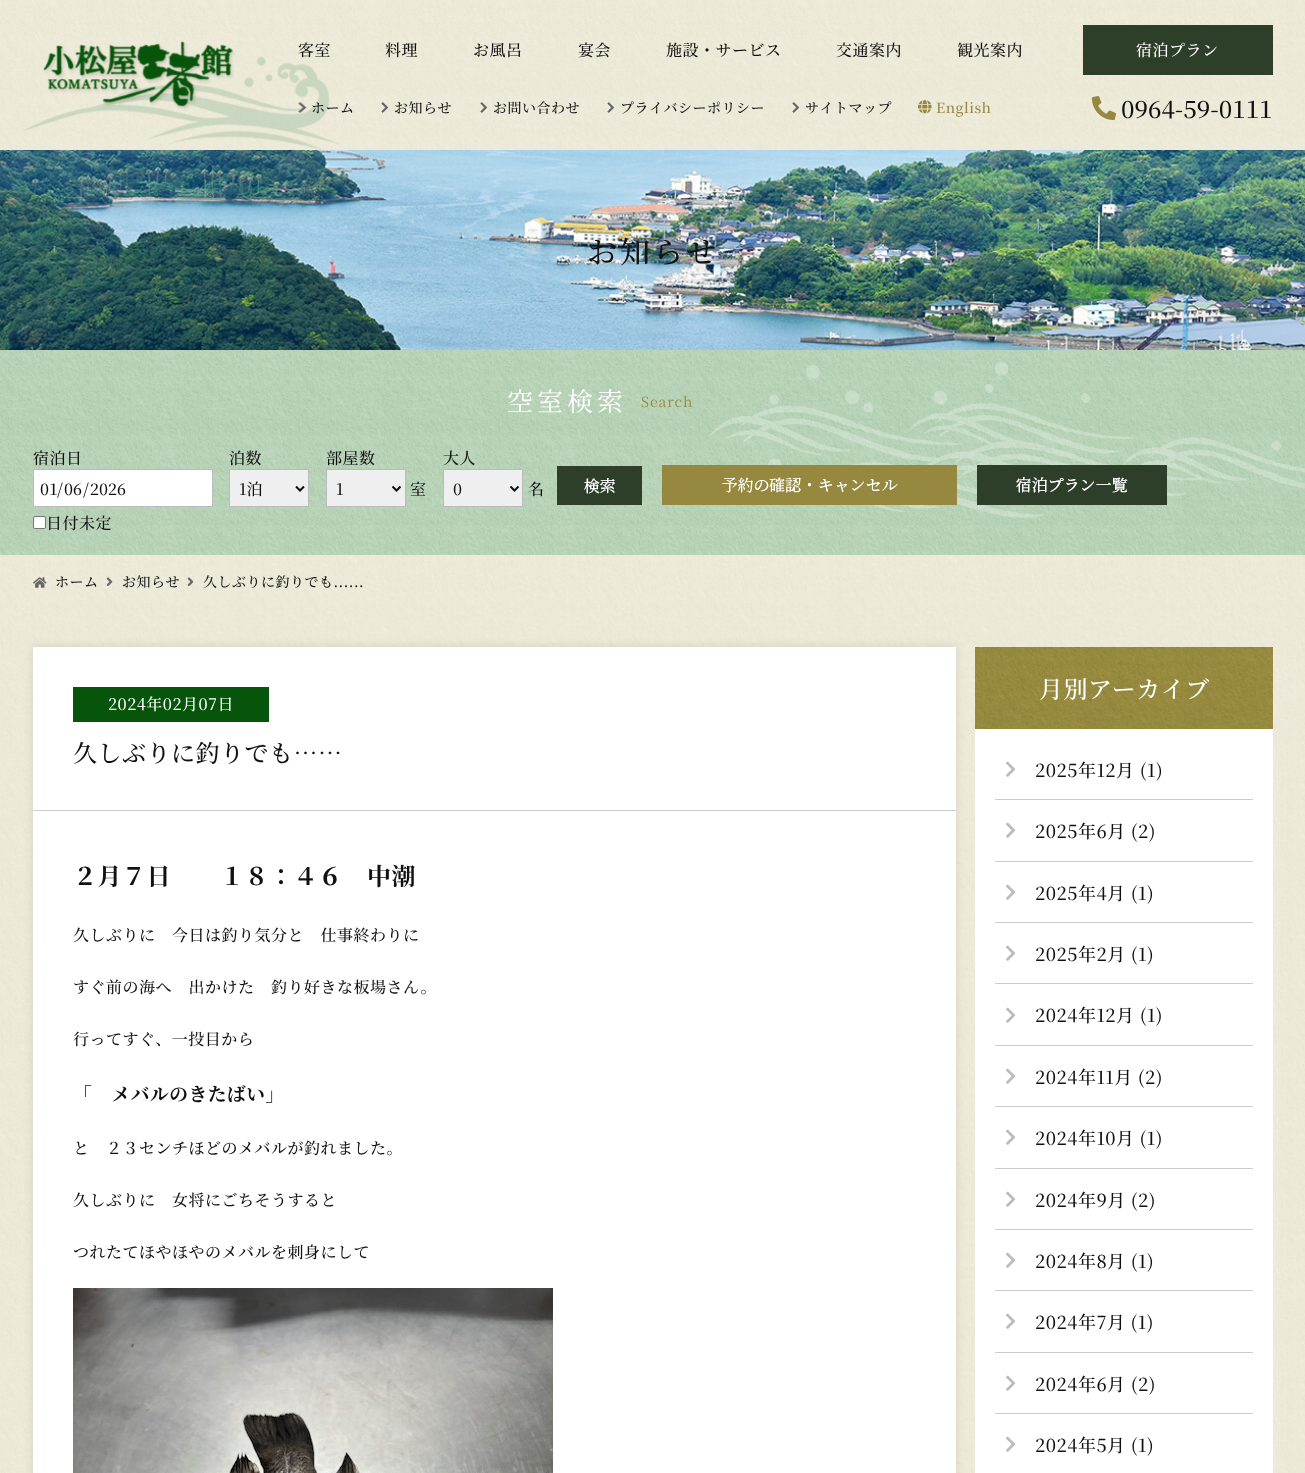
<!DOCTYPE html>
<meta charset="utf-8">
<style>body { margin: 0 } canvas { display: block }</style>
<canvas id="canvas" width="1305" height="1473"></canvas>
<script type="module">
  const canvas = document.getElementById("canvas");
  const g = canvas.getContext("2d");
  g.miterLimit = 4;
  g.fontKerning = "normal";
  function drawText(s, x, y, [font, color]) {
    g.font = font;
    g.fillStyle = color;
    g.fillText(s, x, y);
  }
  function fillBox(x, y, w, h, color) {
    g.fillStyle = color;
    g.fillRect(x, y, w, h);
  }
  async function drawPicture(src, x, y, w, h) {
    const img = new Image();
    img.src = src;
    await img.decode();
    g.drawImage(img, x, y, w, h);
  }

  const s1 = ["500 16px Noto Serif JP", "#111111"];
  const s2 = ["500 14px Noto Serif JP", "#111111"];
  const s3 = ["500 14px Noto Serif JP", "#96893F"];
  const s4 = ["500 16px Noto Serif JP", "#FFFFFF"];
  const s5 = ["500 24px Noto Serif JP", "#111111"];
  const s6 = ["500 30px Noto Serif JP", "#111111"];
  const s7 = ["26px Noto Serif JP", "#FFFFFF"];
  const s8 = ["14px Noto Serif JP", "#96893F"];
  const s9 = ["bold 24px Noto Serif JP", "#111111"];
  const s10 = ["bold 18.75px Noto Serif JP", "#111111"];
  const s11 = ["500 24px Noto Serif JP", "#FFFFFF"];
  const s12 = ["500 18px Noto Serif JP", "#111111"];

  fillBox(0, 0, 1305, 1473, "#FFFFFF");
  await drawPicture("pic1.png", 0, 350, 1305, 205);
  await drawPicture("pic2.png", 0, 0, 1305, 150);
  await drawPicture("pic3.png", 23, 41, 318, 109);
  g.letterSpacing = "0.5px";
  drawText("客室", 298, 56, s1);
  drawText("料理", 385, 56, s1);
  drawText("お風呂", 473, 56, s1);
  drawText("宴会", 578, 56, s1);
  drawText("施設・サービス", 666, 56, s1);
  drawText("交通案内", 836, 56, s1);
  drawText("観光案内", 957, 56, s1);
  await drawPicture("pic4.png", 298, 102, 8, 11);
  drawText("ホーム", 311, 113, s2);
  await drawPicture("pic5.png", 381, 102, 7, 11);
  drawText("お知らせ", 394, 113, s2);
  await drawPicture("pic6.png", 480, 102, 7, 11);
  drawText("お問い合わせ", 493, 113, s2);
  await drawPicture("pic7.png", 607, 102, 7, 11);
  drawText("プライバシーポリシー", 620, 113, s2);
  await drawPicture("pic8.png", 792, 102, 7, 11);
  drawText("サイトマップ", 805, 113, s2);
  await drawPicture("pic9.png", 918, 100, 14, 14);
  drawText("English", 936, 113, s3);
  fillBox(1083, 25, 190, 50, "#2D3F29");
  drawText("宿泊プラン", 1136, 56, s4);
  await drawPicture("pic10.png", 1091, 96, 25, 24);
  g.letterSpacing = "0px";
  drawText("0964-59-0111", 1121, 118, s5);
  await drawPicture("pic11.png", 0, 150, 1305, 200);
  g.letterSpacing = "3px";
  drawText("お知らせ", 587, 263, s6);
  g.letterSpacing = "4px";
  drawText("空室検索", 507, 411, s7);
  g.letterSpacing = "1px";
  drawText("Search", 641, 407, s8);
  g.letterSpacing = "0.5px";
  drawText("宿泊日", 33, 464, s1);
  g.fillStyle = "#FFFFFF";
  g.beginPath();
  g.rect(33.5, 469.5, 179, 37);
  g.fill();
  g.strokeStyle = "#BBBBBB";
  g.stroke();
  g.letterSpacing = "0px";
  drawText("01", 40, 495, s1);
  drawText("/", 57, 495, s1);
  drawText("06", 64, 495, s1);
  drawText("/", 83, 495, s1);
  drawText("2026", 90, 495, s1);
  g.fillStyle = "#FFFFFF";
  g.beginPath();
  g.roundRect(33.5, 516.5, 12, 12, 1.5);
  g.fill();
  g.strokeStyle = "#767676";
  g.stroke();
  g.letterSpacing = "0.5px";
  drawText("日付未定", 46, 529, s1);
  drawText("泊数", 229, 464, s1);
  g.fillStyle = "#EFEFEF";
  g.beginPath();
  g.rect(229.5, 469.5, 79, 37);
  g.fill();
  g.strokeStyle = "#BBBBBB";
  g.stroke();
  g.beginPath();
  g.moveTo(296, 486.5);
  g.lineTo(300, 490.5);
  g.lineTo(304, 486.5);
  g.strokeStyle = "#111111";
  g.lineWidth = 2;
  g.stroke();
  g.letterSpacing = "0px";
  drawText("1泊", 239, 495, s1);
  g.letterSpacing = "0.5px";
  drawText("部屋数", 326, 464, s1);
  g.fillStyle = "#EFEFEF";
  g.beginPath();
  g.rect(326.5, 469.5, 79, 37);
  g.fill();
  g.strokeStyle = "#BBBBBB";
  g.lineWidth = 1;
  g.stroke();
  g.beginPath();
  g.moveTo(392.5, 486.5);
  g.lineTo(396.5, 490.5);
  g.lineTo(400.5, 486.5);
  g.strokeStyle = "#111111";
  g.lineWidth = 2;
  g.stroke();
  g.letterSpacing = "0px";
  drawText("1", 336, 495, s1);
  g.letterSpacing = "0.5px";
  drawText("室", 410, 495, s1);
  drawText("大人", 443, 464, s1);
  g.fillStyle = "#EFEFEF";
  g.beginPath();
  g.rect(443.5, 469.5, 79, 37);
  g.fill();
  g.strokeStyle = "#BBBBBB";
  g.lineWidth = 1;
  g.stroke();
  g.beginPath();
  g.moveTo(510.5, 486.5);
  g.lineTo(514.5, 490.5);
  g.lineTo(518.5, 486.5);
  g.strokeStyle = "#111111";
  g.lineWidth = 2;
  g.stroke();
  g.letterSpacing = "0px";
  drawText("0", 453, 495, s1);
  g.letterSpacing = "0.5px";
  drawText("名", 528, 495, s1);
  await drawPicture("pic12.png", 557, 466, 85, 39);
  await drawPicture("pic15.png", 709, 362, 596, 156);
  await drawPicture("pic13.png", 662, 465, 295, 40);
  await drawPicture("pic14.png", 977, 465, 190, 40);
  await drawPicture("pic16.png", 0, 555, 1305, 92);
  await drawPicture("pic17.png", 33, 577, 14, 11);
  drawText("ホーム", 55, 587, s2);
  await drawPicture("pic18.png", 106, 577, 7, 9);
  drawText("お知らせ", 122, 587, s2);
  await drawPicture("pic19.png", 187, 577, 7, 9);
  drawText("久しぶりに釣りでも......", 203, 587, s2);
  await drawPicture("pic20.png", 0, 647, 1305, 826);
  g.fillStyle = "rgba(0, 0, 0, 0.1)";
  g.filter = "blur(5px)";
  g.beginPath();
  g.rect(33, 647, 923, 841);
  g.fill();
  g.filter = "none";
  fillBox(33, 647, 923, 826, "#FFFFFF");
  fillBox(33, 810, 923, 1, "#CCCCCC");
  fillBox(73, 687, 196, 35, "#07550A");
  drawText("2024年02月07日", 108, 710, s4);
  drawText("久しぶりに釣りでも……", 73, 762, s5);
  drawText("２月７日　　１８：４６　中潮", 73, 885, s9);
  drawText("久しぶりに　今日は釣り気分と　仕事終わりに", 73, 941, s1);
  drawText("すぐ前の海へ　出かけた　釣り好きな板場さん。", 73, 993, s1);
  drawText("行ってすぐ、一投目から", 73, 1045, s1);
  drawText("「　メバルのきたばい」", 73, 1101, s10);
  drawText("と　２３センチほどのメバルが釣れました。", 73, 1154, s1);
  drawText("久しぶりに　女将にごちそうすると", 73, 1206, s1);
  drawText("つれたてほやほやのメバルを刺身にして", 73, 1258, s1);
  await drawPicture("pic21.png", 73, 1288, 480, 185);
  await drawPicture("pic22.png", 975, 647, 298, 82);
  drawText("月別アーカイブ", 1039, 698, s11);
  fillBox(975, 729, 298, 744, "#FFFFFF");
  fillBox(995, 799, 258, 1, "#CCCCCC");
  await drawPicture("pic23.png", 1006, 761, 10, 16);
  drawText("2025年12月 (1)", 1035, 777, s12);
  fillBox(995, 861, 258, 1, "#CCCCCC");
  await drawPicture("pic23.png", 1006, 822, 10, 16);
  drawText("2025年6月 (2)", 1035, 838, s12);
  fillBox(995, 922, 258, 1, "#CCCCCC");
  await drawPicture("pic23.png", 1006, 884, 10, 16);
  drawText("2025年4月 (1)", 1035, 900, s12);
  fillBox(995, 983, 258, 1, "#CCCCCC");
  await drawPicture("pic23.png", 1006, 945, 10, 16);
  drawText("2025年2月 (1)", 1035, 961, s12);
  fillBox(995, 1045, 258, 1, "#CCCCCC");
  await drawPicture("pic23.png", 1006, 1007, 10, 16);
  drawText("2024年12月 (1)", 1035, 1022, s12);
  fillBox(995, 1106, 258, 1, "#CCCCCC");
  await drawPicture("pic23.png", 1006, 1068, 10, 16);
  drawText("2024年11月 (2)", 1035, 1084, s12);
  fillBox(995, 1168, 258, 1, "#CCCCCC");
  await drawPicture("pic23.png", 1006, 1129, 10, 16);
  drawText("2024年10月 (1)", 1035, 1145, s12);
  fillBox(995, 1229, 258, 1, "#CCCCCC");
  await drawPicture("pic23.png", 1006, 1191, 10, 16);
  drawText("2024年9月 (2)", 1035, 1207, s12);
  fillBox(995, 1290, 258, 1, "#CCCCCC");
  await drawPicture("pic23.png", 1006, 1252, 10, 16);
  drawText("2024年8月 (1)", 1035, 1268, s12);
  fillBox(995, 1352, 258, 1, "#CCCCCC");
  await drawPicture("pic23.png", 1006, 1313, 10, 16);
  drawText("2024年7月 (1)", 1035, 1329, s12);
  fillBox(995, 1413, 258, 1, "#CCCCCC");
  await drawPicture("pic23.png", 1006, 1375, 10, 16);
  drawText("2024年6月 (2)", 1035, 1391, s12);
  await drawPicture("pic23.png", 1006, 1436, 10, 16);
  drawText("2024年5月 (1)", 1035, 1452, s12);
</script>
